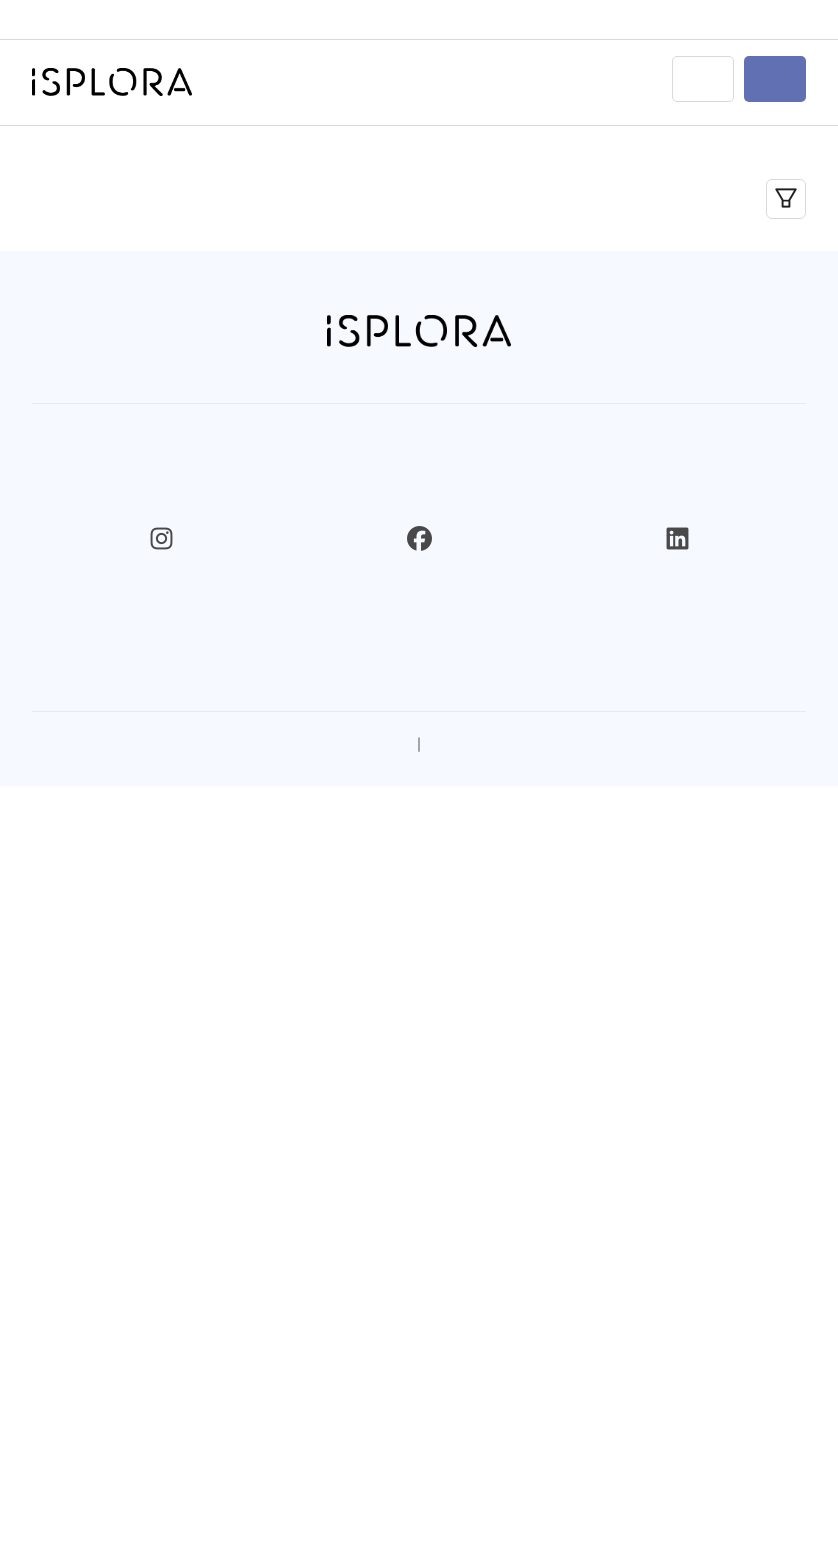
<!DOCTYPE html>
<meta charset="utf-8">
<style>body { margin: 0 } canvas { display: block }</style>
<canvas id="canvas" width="838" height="1567"></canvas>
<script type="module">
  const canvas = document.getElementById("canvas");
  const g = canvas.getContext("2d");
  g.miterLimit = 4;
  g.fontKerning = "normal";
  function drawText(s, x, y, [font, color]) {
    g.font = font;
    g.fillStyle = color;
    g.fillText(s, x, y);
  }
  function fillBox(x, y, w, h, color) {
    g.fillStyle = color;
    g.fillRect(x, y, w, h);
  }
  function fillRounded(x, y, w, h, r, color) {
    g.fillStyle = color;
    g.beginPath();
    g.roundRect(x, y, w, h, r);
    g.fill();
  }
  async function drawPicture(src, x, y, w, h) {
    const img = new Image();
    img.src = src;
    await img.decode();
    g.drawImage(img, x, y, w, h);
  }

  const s1 = ["12px Inter", "#494949"];

  fillBox(0, 0, 838, 1567, "#FFFFFF");
  fillBox(0, 39, 838, 1, "#DBD9D9");
  fillBox(0, 125, 838, 1, "#DBD9D9");
  await drawPicture("pic1.png", 32, 68, 160, 28);
  g.beginPath();
  g.roundRect(672.5, 56.5, 61, 45, 4.5);
  g.strokeStyle = "#D9D9D9";
  g.stroke();
  fillRounded(744, 56, 62, 46, 5, "#6170B3");
  g.beginPath();
  g.roundRect(766.5, 179.5, 39, 39, 5.5);
  g.stroke();
  await drawPicture("pic2.png", 775, 188, 22, 20);
  fillBox(0, 251, 838, 535, "#F6F9FF");
  await drawPicture("pic3.png", 327, 315, 184, 32);
  fillBox(32, 403, 774, 1, "#E8EAF0");
  await drawPicture("pic4.png", 150, 527, 23, 23);
  await drawPicture("pic5.png", 407, 526, 25, 25);
  await drawPicture("pic6.png", 666, 527, 23, 23);
  fillBox(32, 711, 774, 1, "#E8EAF0");
  drawText("|", 417, 749, s1);
</script>
